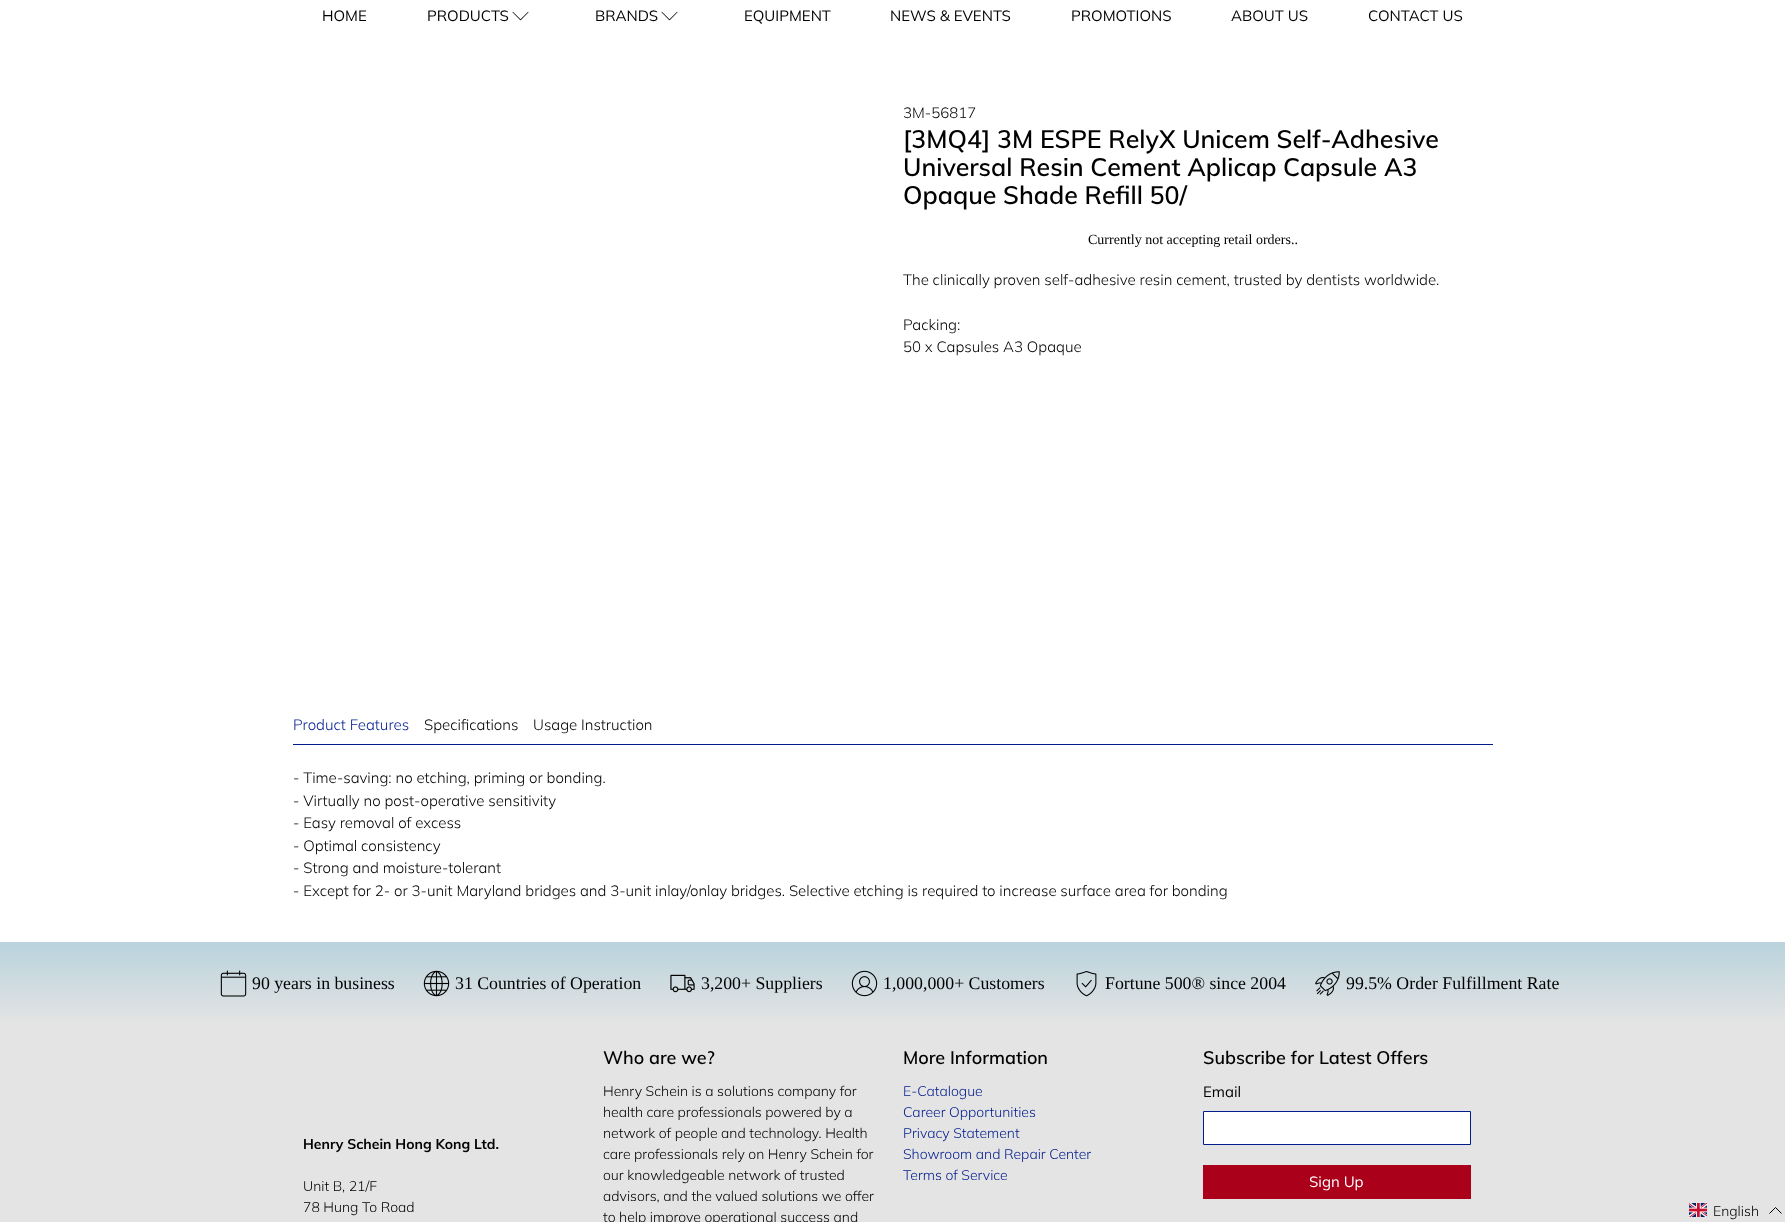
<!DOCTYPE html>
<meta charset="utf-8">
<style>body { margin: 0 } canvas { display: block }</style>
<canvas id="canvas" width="1785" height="1222"></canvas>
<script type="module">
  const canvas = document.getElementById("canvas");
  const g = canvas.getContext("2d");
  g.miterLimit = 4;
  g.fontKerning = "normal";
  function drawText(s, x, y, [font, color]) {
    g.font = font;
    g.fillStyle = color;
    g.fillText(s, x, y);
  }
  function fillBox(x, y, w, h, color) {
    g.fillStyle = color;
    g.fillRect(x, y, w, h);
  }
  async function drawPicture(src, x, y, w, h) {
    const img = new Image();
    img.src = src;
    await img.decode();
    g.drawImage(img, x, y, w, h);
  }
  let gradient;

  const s1 = ["15px Muli", "#000000"];
  const s2 = ["300 15px Muli", "#000000"];
  const s3 = ["600 25px Muli", "#000000"];
  const s4 = ["14px Liberation Serif", "#000000"];
  const s5 = ["300 15px Muli", "#001C8D"];
  const s6 = ["17.8px Liberation Serif", "#000000"];
  const s7 = ["bold 14px Muli", "#000000"];
  const s8 = ["300 14px Muli", "#000000"];
  const s9 = ["600 18px Muli", "#000000"];
  const s10 = ["300 14px Muli", "#001C8D"];
  const s11 = ["15px Muli", "#FFFFFF"];

  fillBox(0, 0, 1785, 1222, "#FFFFFF");
  drawText("HOME", 322, 21, s1);
  drawText("PRODUCTS", 427, 21, s1);
  await drawPicture("pic1.png", 512, 11, 17, 10);
  drawText("BRANDS", 595, 21, s1);
  await drawPicture("pic1.png", 661, 11, 17, 10);
  drawText("EQUIPMENT", 744, 21, s1);
  drawText("NEWS & EVENTS", 890, 21, s1);
  drawText("PROMOTIONS", 1071, 21, s1);
  drawText("ABOUT US", 1231, 21, s1);
  drawText("CONTACT US", 1368, 21, s1);
  drawText("3M-56817", 903, 118, s2);
  drawText("[3MQ4] 3M ESPE RelyX Unicem Self-Adhesive", 903, 148, s3);
  drawText("Universal Resin Cement Aplicap Capsule A3", 903, 176, s3);
  drawText("Opaque Shade Refill 50/", 903, 204, s3);
  drawText("Currently not accepting retail orders..", 1088, 244, s4);
  drawText("The clinically proven self-adhesive resin cement, trusted by dentists worldwide.", 903, 285, s2);
  drawText("Packing:", 903, 330, s2);
  drawText("50 x Capsules A3 Opaque", 903, 352, s2);
  fillBox(293, 744, 1200, 1, "#001C8D");
  drawText("Product Features", 293, 730, s5);
  drawText("Specifications", 424, 730, s2);
  drawText("Usage Instruction", 533, 730, s2);
  drawText("- Time-saving: no etching, priming or bonding.", 293, 783, s2);
  drawText("- Virtually no post-operative sensitivity", 293, 806, s2);
  drawText("- Easy removal of excess", 293, 828, s2);
  drawText("- Optimal consistency", 293, 851, s2);
  drawText("- Strong and moisture-tolerant", 293, 873, s2);
  drawText("- Except for 2- or 3-unit Maryland bridges and 3-unit inlay/onlay bridges. Selective etching is required to increase surface area for bonding", 293, 896, s2);
  gradient = g.createLinearGradient(893, 1024, 893, 942);
  gradient.addColorStop(0, "#E4E4E4");
  gradient.addColorStop(1, "#B9D3DC");
  g.fillStyle = gradient;
  g.fillRect(0, 942, 1785, 82);
  await drawPicture("pic2.png", 220, 970, 27, 27);
  drawText("90 years in business", 252, 989, s6);
  await drawPicture("pic3.png", 423, 970, 27, 27);
  drawText("31 Countries of Operation", 455, 989, s6);
  await drawPicture("pic4.png", 670, 974, 25, 19);
  drawText("3,200+ Suppliers", 701, 989, s6);
  await drawPicture("pic5.png", 851, 970, 27, 27);
  drawText("1,000,000+ Customers", 883, 989, s6);
  await drawPicture("pic6.png", 1076, 971, 21, 26);
  drawText("Fortune 500® since 2004", 1105, 989, s6);
  await drawPicture("pic7.png", 1315, 971, 25, 25);
  drawText("99.5% Order Fulfillment Rate", 1346, 989, s6);
  fillBox(0, 1024, 1785, 198, "#E4E4E4");
  drawText("Henry Schein Hong Kong Ltd.", 303, 1149, s7);
  drawText("Unit B, 21/F", 303, 1191, s8);
  drawText("78 Hung To Road", 303, 1212, s8);
  drawText("Who are we?", 603, 1064, s9);
  drawText("Henry Schein is a solutions company for", 603, 1096, s8);
  drawText("health care professionals powered by a", 603, 1117, s8);
  drawText("network of people and technology. Health", 603, 1138, s8);
  drawText("care professionals rely on Henry Schein for", 603, 1159, s8);
  drawText("our knowledgeable network of trusted", 603, 1180, s8);
  drawText("advisors, and the valued solutions we offer", 603, 1201, s8);
  drawText("to help improve operational success and", 603, 1222, s8);
  drawText("More Information", 903, 1064, s9);
  drawText("E-Catalogue", 903, 1096, s10);
  drawText("Career Opportunities", 903, 1117, s10);
  drawText("Privacy Statement", 903, 1138, s10);
  drawText("Showroom and Repair Center", 903, 1159, s10);
  drawText("Terms of Service", 903, 1180, s10);
  drawText("Subscribe for Latest Offers", 1203, 1064, s9);
  drawText("Email", 1203, 1097, s1);
  g.fillStyle = "#FFFFFF";
  g.beginPath();
  g.rect(1203.5, 1111.5, 267, 33);
  g.fill();
  g.strokeStyle = "#001C8D";
  g.stroke();
  fillBox(1203, 1165, 268, 34, "#AB001A");
  drawText("Sign Up", 1309, 1187, s11);
  await drawPicture("pic8.png", 1689, 1203, 18, 14);
  drawText("English", 1713, 1216, s8);
  g.beginPath();
  g.moveTo(1781.5, 1213.5);
  g.lineTo(1775.5, 1207.5);
  g.lineTo(1769.5, 1213.5);
  g.strokeStyle = "#000000";
  g.stroke();
</script>
